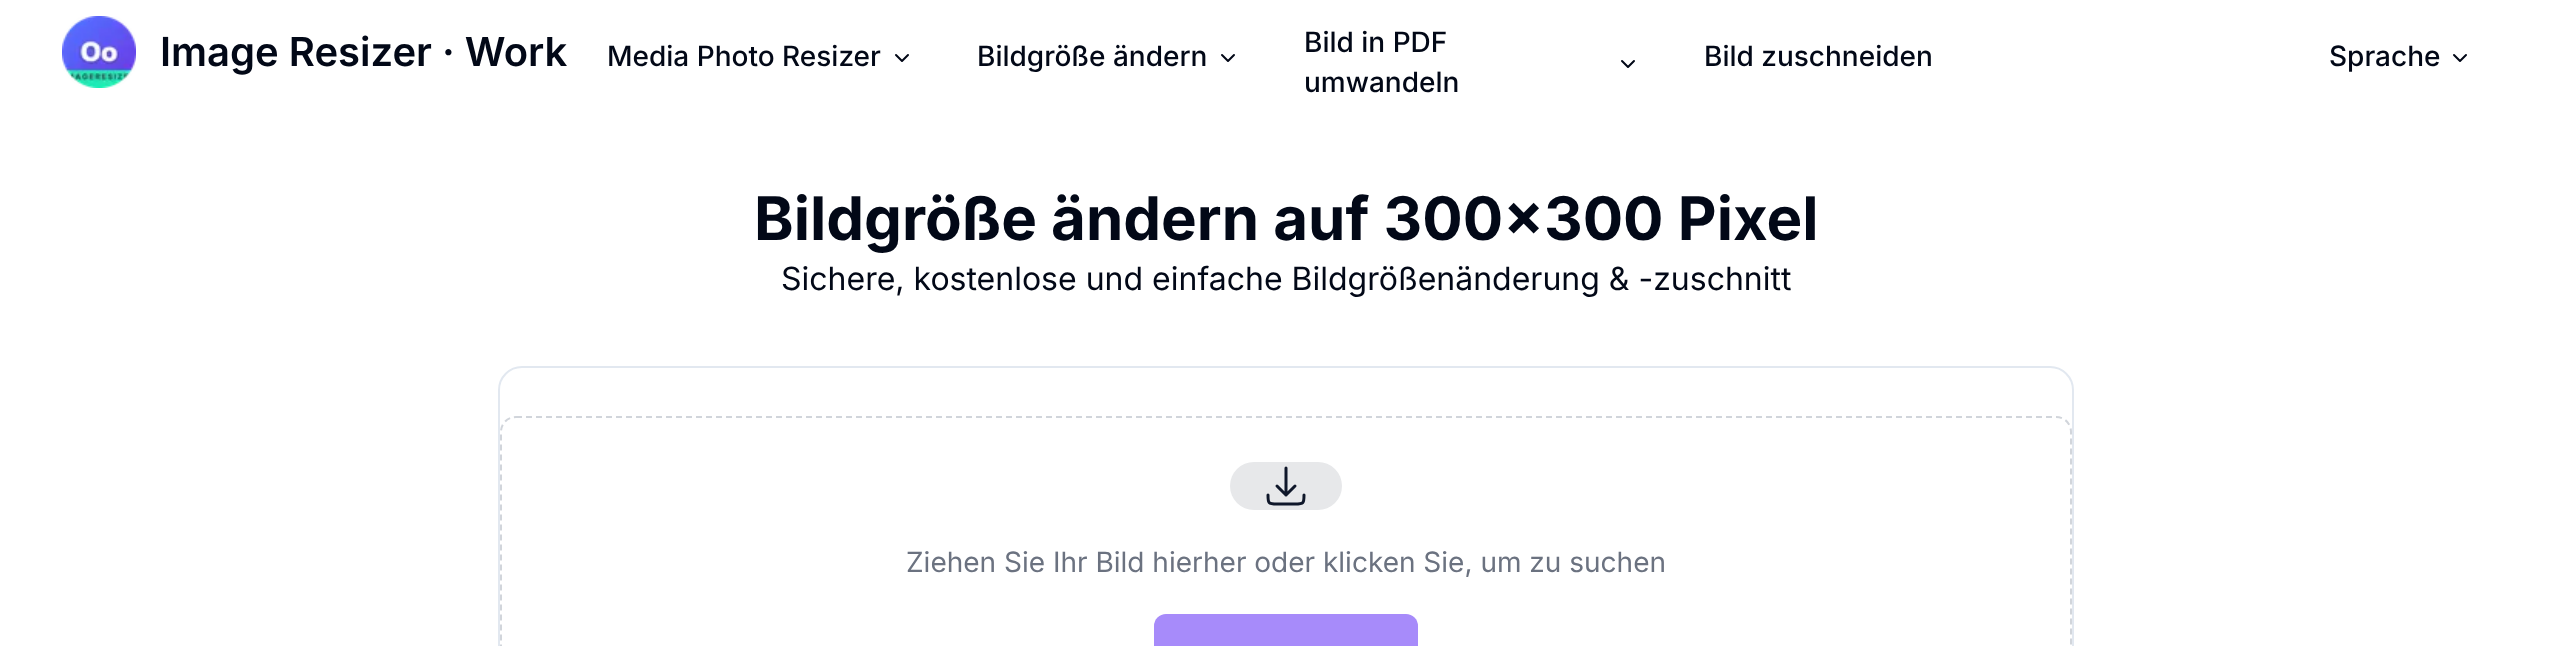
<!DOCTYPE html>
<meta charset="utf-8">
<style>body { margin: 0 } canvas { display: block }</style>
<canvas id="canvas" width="2565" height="646"></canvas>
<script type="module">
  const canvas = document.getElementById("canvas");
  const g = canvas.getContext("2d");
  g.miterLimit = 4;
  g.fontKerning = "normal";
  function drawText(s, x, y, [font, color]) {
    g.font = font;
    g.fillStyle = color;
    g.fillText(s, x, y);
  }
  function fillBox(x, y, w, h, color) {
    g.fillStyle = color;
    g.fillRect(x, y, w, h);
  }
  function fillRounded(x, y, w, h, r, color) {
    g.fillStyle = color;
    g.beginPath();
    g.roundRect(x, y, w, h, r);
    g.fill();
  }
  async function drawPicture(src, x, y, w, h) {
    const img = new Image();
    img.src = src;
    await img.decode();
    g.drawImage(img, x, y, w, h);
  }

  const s1 = ["600 40px Inter", "#020817"];
  const s2 = ["500 28px Inter", "#020817"];
  const s3 = ["bold 60px Inter", "#020817"];
  const s4 = ["32px Inter", "#020817"];
  const s5 = ["28px Inter", "#6B7280"];

  fillBox(0, 0, 2565, 646, "#FFFFFF");
  await drawPicture("pic1.png", 62, 16, 74, 72);
  drawText("Image Resizer · Work", 160, 66, s1);
  drawText("Media Photo Resizer", 607, 66, s2);
  g.beginPath();
  g.moveTo(896, 55);
  g.lineTo(902, 61);
  g.lineTo(908, 55);
  g.strokeStyle = "#020817";
  g.lineWidth = 2;
  g.lineCap = "round";
  g.lineJoin = "round";
  g.stroke();
  drawText("Bildgröße ändern", 977, 66, s2);
  g.beginPath();
  g.moveTo(1222, 55);
  g.lineTo(1228, 61);
  g.lineTo(1234, 55);
  g.stroke();
  drawText("Bild in PDF", 1304, 52, s2);
  g.beginPath();
  g.moveTo(1622, 61);
  g.lineTo(1628, 67);
  g.lineTo(1634, 61);
  g.stroke();
  drawText("umwandeln", 1304, 92, s2);
  drawText("Bild zuschneiden", 1704, 66, s2);
  drawText("Sprache", 2329, 66, s2);
  g.beginPath();
  g.moveTo(2454, 55);
  g.lineTo(2460, 61);
  g.lineTo(2466, 55);
  g.stroke();
  drawText("Bildgröße ändern auf 300x300 Pixel", 754, 240, s3);
  drawText("Sichere, kostenlose und einfache Bildgrößenänderung & -zuschnitt", 781, 290, s4);
  g.beginPath();
  g.roundRect(499, 367, 1574, 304, 23);
  g.strokeStyle = "#E2E8F0";
  g.lineJoin = "miter";
  g.stroke();
  g.beginPath();
  g.moveTo(516, 417);
  g.lineTo(2056, 417);
  g.bezierCurveTo(2064.5, 417, 2071, 423.5, 2071, 432);
  g.lineTo(2071, 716);
  g.bezierCurveTo(2071, 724.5, 2064.5, 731, 2056, 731);
  g.lineTo(516, 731);
  g.bezierCurveTo(507.5, 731, 501, 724.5, 501, 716);
  g.lineTo(501, 432);
  g.bezierCurveTo(501, 423.5, 507.5, 417, 516, 417);
  g.closePath();
  g.strokeStyle = "#D1D5DB";
  g.lineCap = "butt";
  g.setLineDash([6, 4]);
  g.stroke();
  fillRounded(1230, 462, 112, 48, 24, "#E7E8EA");
  g.beginPath();
  g.moveTo(1268, 495);
  g.bezierCurveTo(1268, 503, 1268, 504, 1277, 504);
  g.lineTo(1295, 504);
  g.bezierCurveTo(1304, 504, 1304, 503, 1304, 495);
  g.moveTo(1295, 486);
  g.lineTo(1286, 495);
  g.moveTo(1286, 495);
  g.lineTo(1277, 486);
  g.moveTo(1286, 495);
  g.lineTo(1286, 468);
  g.strokeStyle = "#0F172A";
  g.lineWidth = 3;
  g.lineCap = "round";
  g.lineJoin = "round";
  g.setLineDash([]);
  g.stroke();
  drawText("Ziehen Sie Ihr Bild hierher oder klicken Sie, um zu suchen", 906, 572, s5);
  fillRounded(1154, 614, 264, 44, 12, "#A78BFA");
</script>
